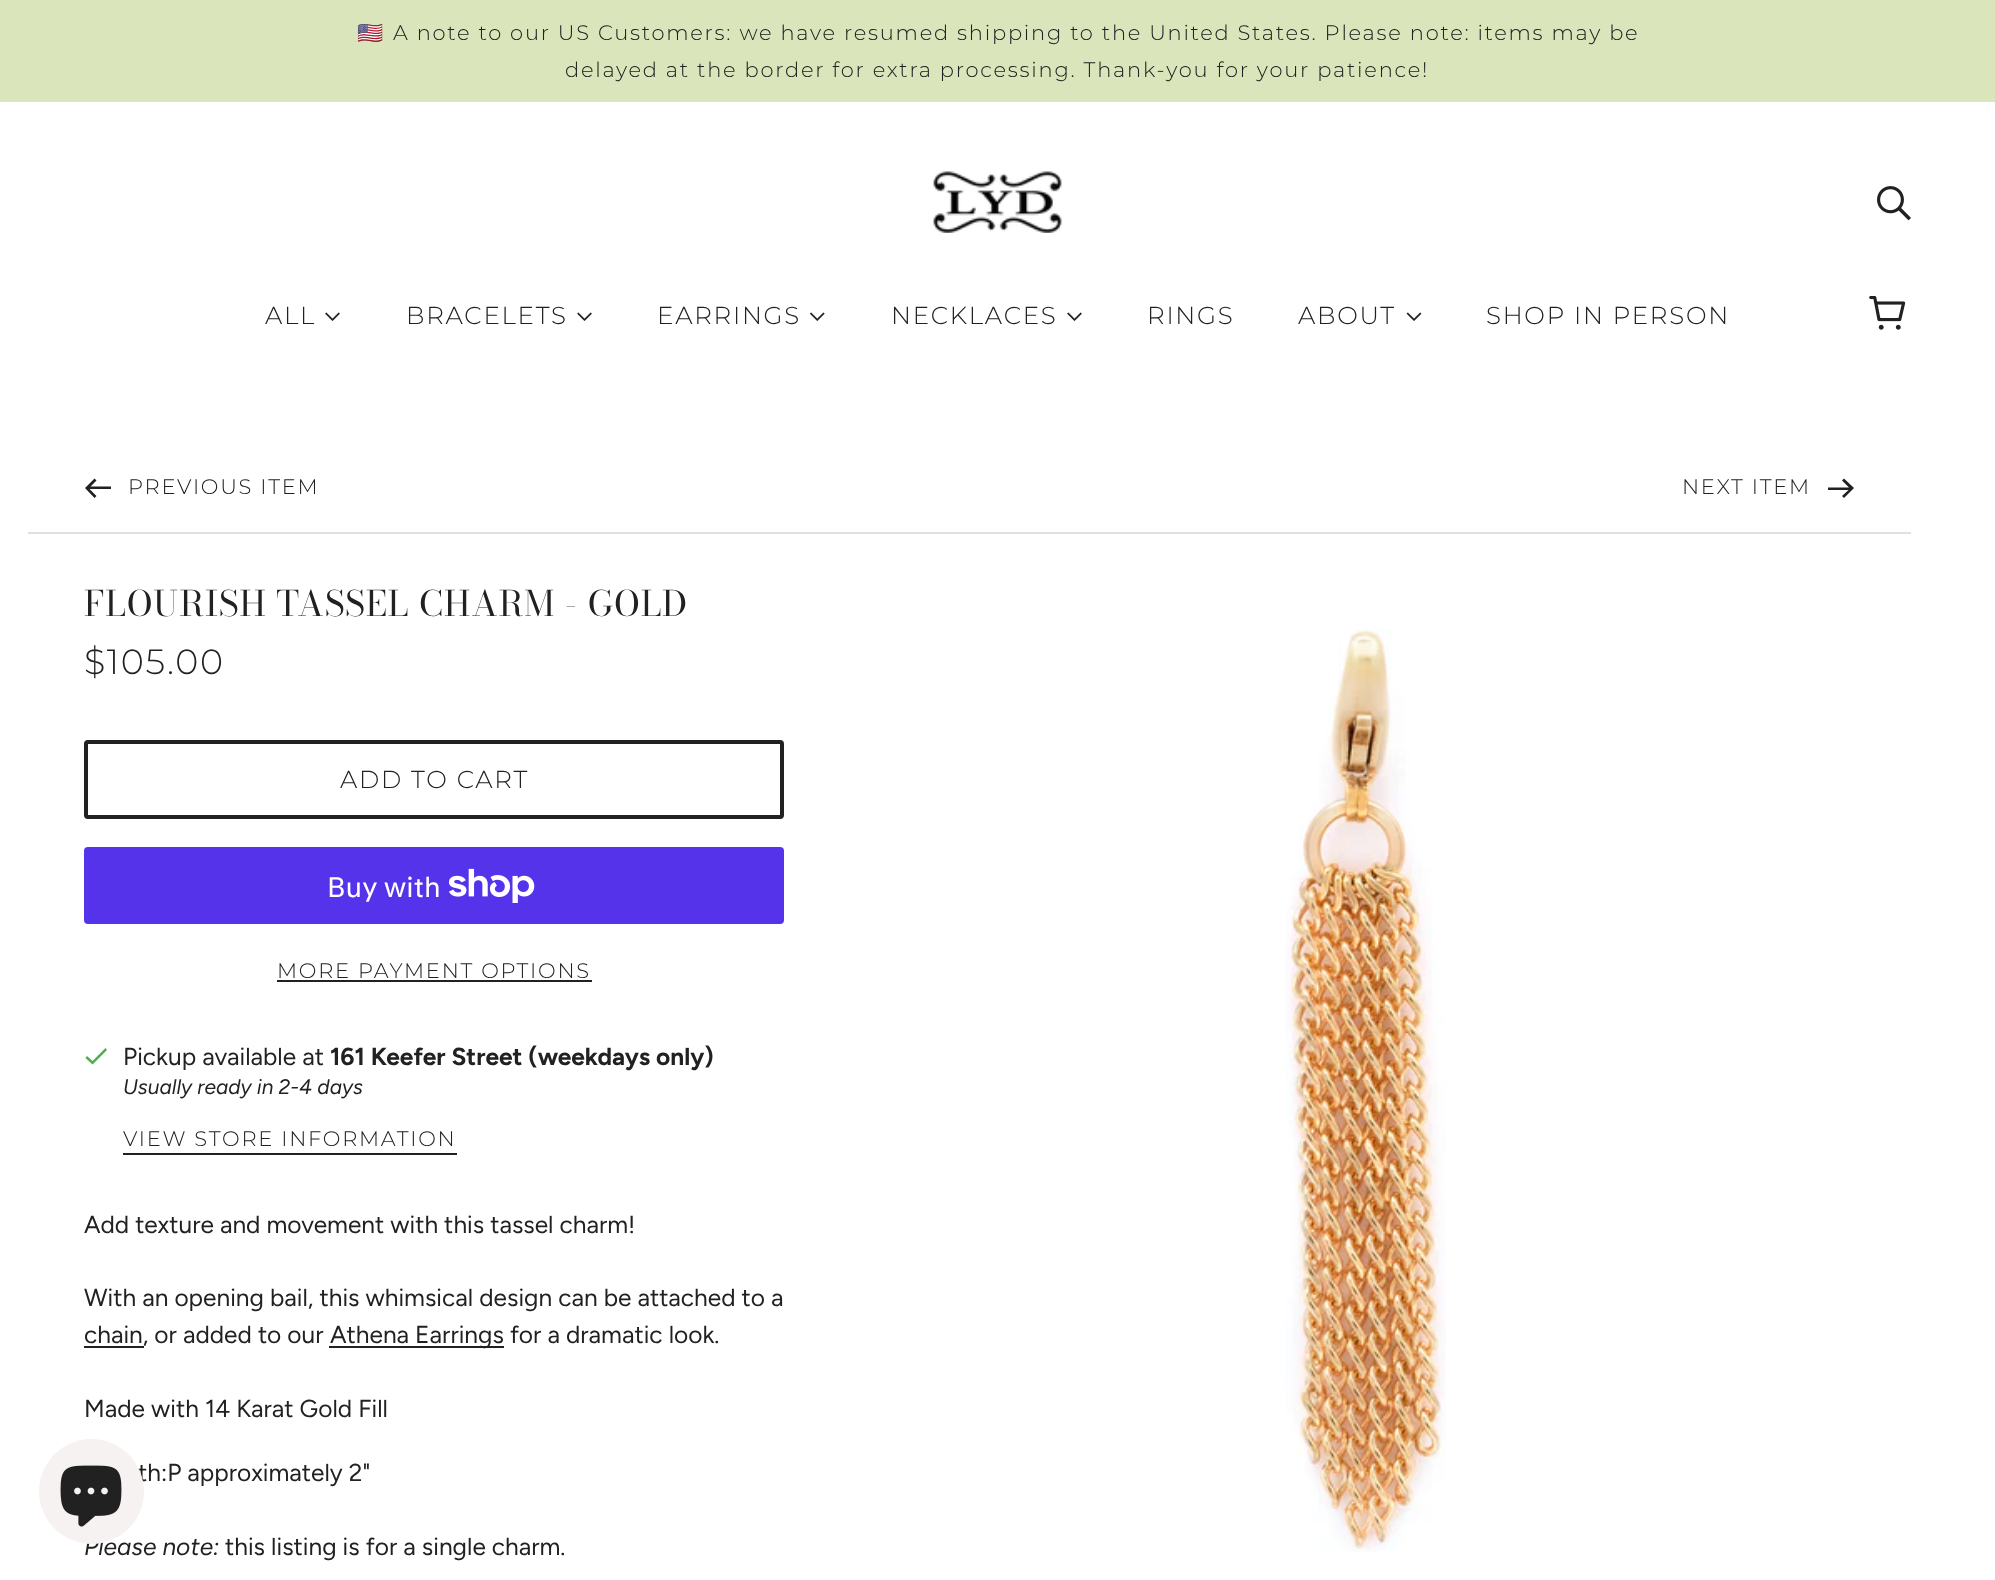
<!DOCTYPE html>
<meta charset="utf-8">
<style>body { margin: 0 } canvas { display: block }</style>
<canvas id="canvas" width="1995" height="1580"></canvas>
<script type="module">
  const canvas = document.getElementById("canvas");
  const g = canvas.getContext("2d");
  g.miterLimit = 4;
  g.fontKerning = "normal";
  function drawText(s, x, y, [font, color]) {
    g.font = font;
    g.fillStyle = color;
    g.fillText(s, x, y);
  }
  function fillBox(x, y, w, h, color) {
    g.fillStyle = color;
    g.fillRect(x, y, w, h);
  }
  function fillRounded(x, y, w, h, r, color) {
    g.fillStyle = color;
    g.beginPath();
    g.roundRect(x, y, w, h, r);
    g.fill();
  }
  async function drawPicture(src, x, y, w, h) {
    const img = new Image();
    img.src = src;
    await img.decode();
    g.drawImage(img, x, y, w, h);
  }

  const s1 = ["21px Noto Color Emoji", "#212121"];
  const s2 = ["300 21px Montserrat", "#212121"];
  const s3 = ["300 24.5px Montserrat", "#212121"];
  const s4 = ["35px Bodoni Moda", "#212121"];
  const s5 = ["300 35px Montserrat", "#212121"];
  const s6 = ["28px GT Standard", "#FFFFFF"];
  const s7 = ["24.5px Figtree", "#212121"];
  const s8 = ["bold 24.5px Figtree", "#212121"];
  const s9 = ["italic 21px Figtree", "#212121"];
  const s10 = ["italic 24.5px Figtree", "#212121"];

  fillBox(0, 0, 1995, 1580, "#FFFFFF");
  fillBox(0, 0, 1995, 102, "#DAE5BB");
  g.letterSpacing = "1.75px";
  drawText("🇺🇸", 357, 40, s1);
  drawText("A note to our US Customers: we have resumed shipping to the United States. Please note: items may be", 393, 40, s2);
  drawText("delayed at the border for extra processing. Thank-you for your patience!", 565, 77, s2);
  await drawPicture("pic1.png", 933, 171, 129, 62);
  await drawPicture("pic2.png", 1877, 186, 34, 35);
  drawText("ALL", 265, 324, s3);
  await drawPicture("pic3.png", 325, 312, 15, 9);
  drawText("BRACELETS", 406, 324, s3);
  await drawPicture("pic3.png", 577, 312, 15, 9);
  drawText("EARRINGS", 657, 324, s3);
  await drawPicture("pic4.png", 809, 312, 16, 9);
  drawText("NECKLACES", 891, 324, s3);
  await drawPicture("pic3.png", 1067, 312, 15, 9);
  drawText("RINGS", 1147, 324, s3);
  drawText("ABOUT", 1298, 324, s3);
  await drawPicture("pic5.png", 1406, 312, 16, 9);
  drawText("SHOP IN PERSON", 1486, 324, s3);
  await drawPicture("pic6.png", 1869, 296, 37, 34);
  fillBox(28, 532, 1883, 2, "#E0E0E0");
  g.fillStyle = "#212121";
  g.beginPath();
  g.moveTo(90.5, 486.5);
  g.lineTo(111, 486.5);
  g.lineTo(111, 489);
  g.lineTo(89.5, 489);
  g.lineTo(96.5, 496);
  g.lineTo(94.5, 498);
  g.lineTo(85, 488);
  g.lineTo(94.5, 478.5);
  g.lineTo(96.5, 480.5);
  g.closePath();
  g.fill();
  drawText("PREVIOUS ITEM", 128, 494, s2);
  drawText("NEXT ITEM", 1682, 494, s2);
  g.beginPath();
  g.moveTo(1848.5, 490);
  g.lineTo(1828, 490);
  g.lineTo(1828, 487.5);
  g.lineTo(1849, 487.5);
  g.lineTo(1842, 480.5);
  g.lineTo(1844, 478.5);
  g.lineTo(1854, 488);
  g.lineTo(1844, 498);
  g.lineTo(1842, 496);
  g.closePath();
  g.fill();
  g.letterSpacing = "0.9px";
  drawText("FLOURISH TASSEL CHARM - GOLD", 84, 616, s4);
  g.letterSpacing = "1.75px";
  drawText("$105.00", 84, 674, s5);
  g.beginPath();
  g.roundRect(86, 742, 696, 75, 2);
  g.strokeStyle = "#212121";
  g.lineWidth = 4;
  g.stroke();
  drawText("ADD TO CART", 340, 788, s3);
  fillRounded(84, 847, 700, 77, 4, "#5433EB");
  g.letterSpacing = "0px";
  drawText("Buy with", 327, 897, s6);
  await drawPicture("pic7.png", 449, 868, 86, 35);
  g.letterSpacing = "1.75px";
  drawText("MORE PAYMENT OPTIONS", 277, 978, s2);
  fillBox(277, 980, 315, 2, "#212121");
  g.fillStyle = "#4CAF50";
  g.beginPath();
  g.moveTo(92.5, 1061);
  g.lineTo(87, 1056);
  g.lineTo(85.5, 1058);
  g.lineTo(92.5, 1064.5);
  g.lineTo(107, 1050);
  g.lineTo(105.5, 1048);
  g.closePath();
  g.fill();
  g.letterSpacing = "0px";
  drawText("Pickup available at", 123, 1065, s7);
  drawText("161 Keefer Street (weekdays only)", 330, 1065, s8);
  drawText("Usually ready in 2-4 days", 123, 1094, s9);
  g.letterSpacing = "1.75px";
  drawText("VIEW STORE INFORMATION", 123, 1146, s2);
  fillBox(123, 1153, 334, 2, "#212121");
  await drawPicture("pic8.png", 1285, 629, 161, 923);
  g.letterSpacing = "0px";
  drawText("Add texture and movement with this tassel charm!", 84, 1233, s7);
  drawText("With an opening bail, this whimsical design can be attached to a", 84, 1306, s7);
  drawText("chain, or added to our", 84, 1343, s7);
  fillBox(84, 1346, 60, 2, "#212121");
  fillBox(329, 1346, 175, 2, "#212121");
  drawText("Athena Earrings for a dramatic look.", 330, 1343, s7);
  drawText("Made with 14 Karat Gold Fill", 84, 1417, s7);
  drawText("th:P approximately 2\"", 138, 1481, s7);
  drawText("Please note:", 84, 1555, s10);
  drawText("this listing is for a single charm.", 225, 1555, s7);
  g.fillStyle = "#F7F2F2";
  g.beginPath();
  g.arc(91.5, 1491.5, 52.5, 0, Math.PI * 2);
  g.fill();
  await drawPicture("pic9.png", 60, 1465, 62, 62);
</script>
